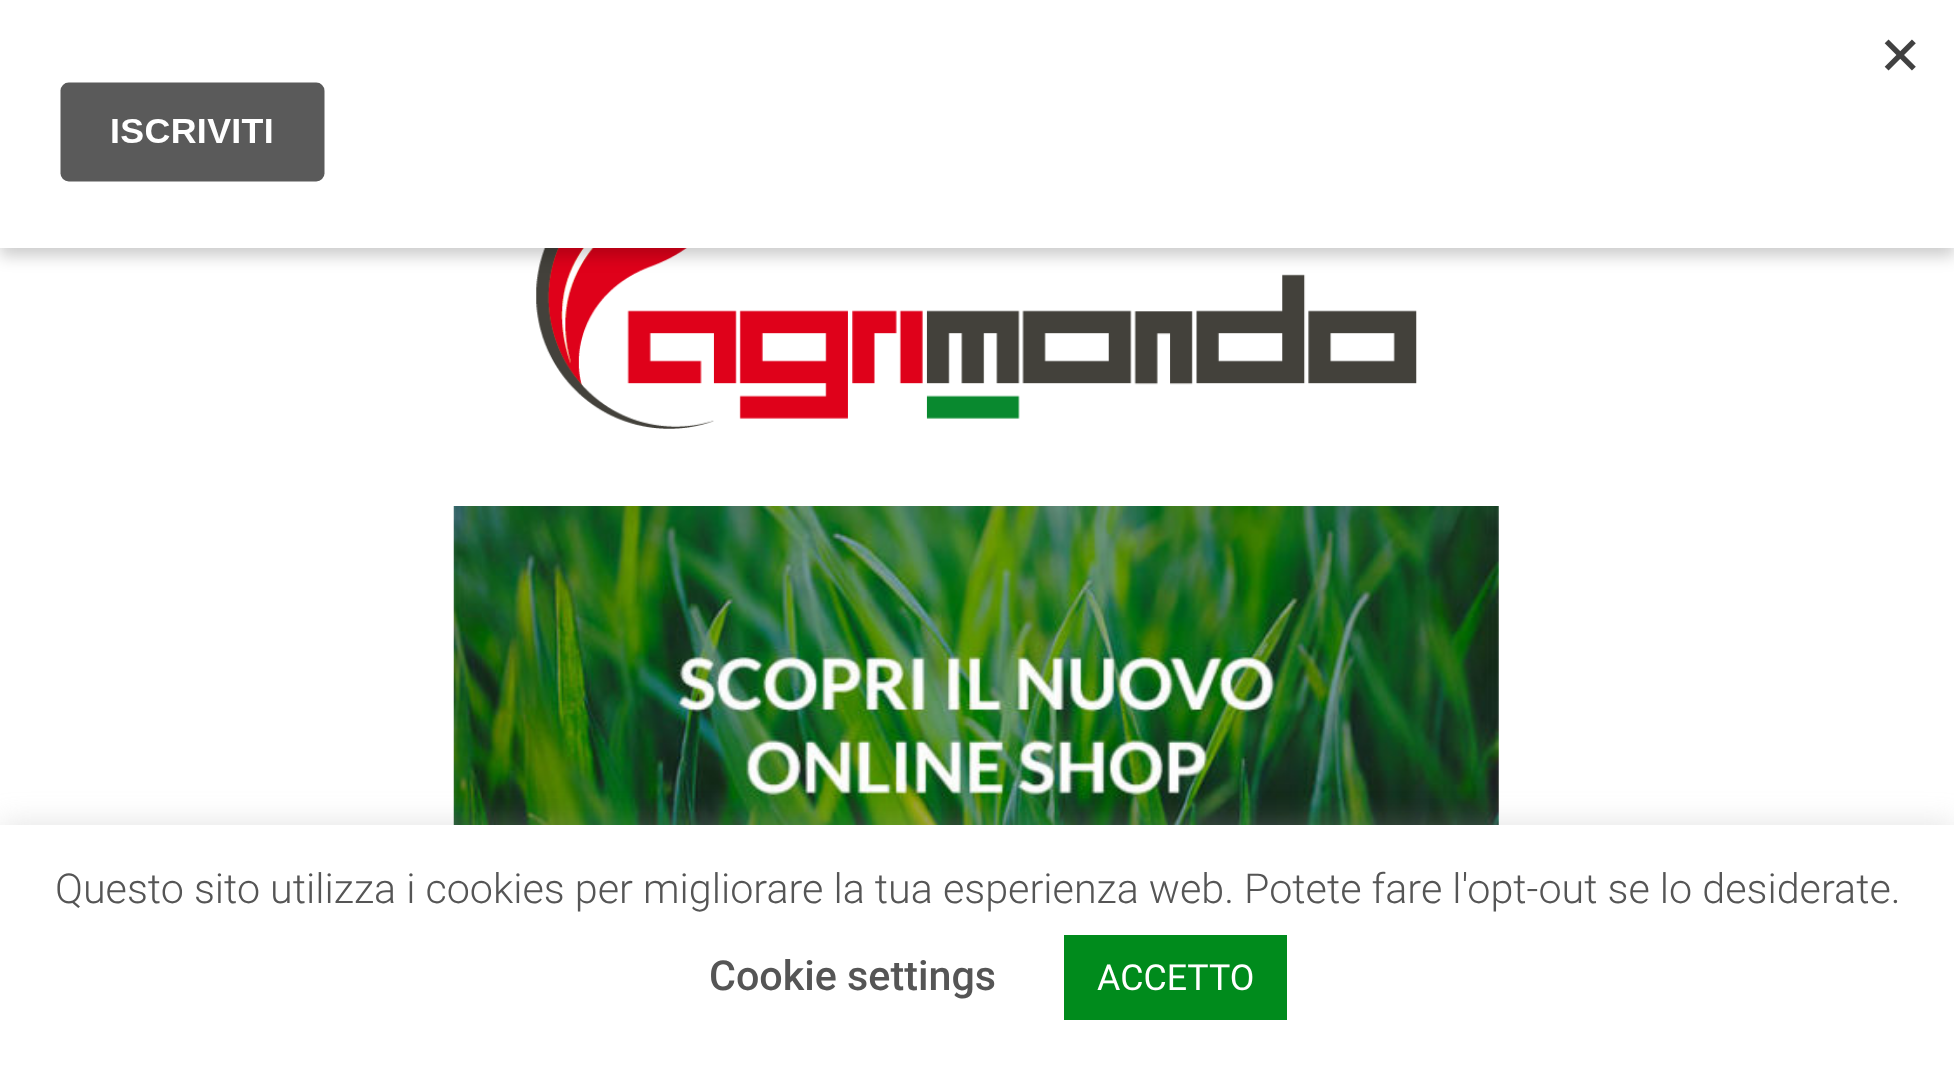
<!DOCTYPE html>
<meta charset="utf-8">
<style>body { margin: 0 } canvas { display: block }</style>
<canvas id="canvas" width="1954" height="1066"></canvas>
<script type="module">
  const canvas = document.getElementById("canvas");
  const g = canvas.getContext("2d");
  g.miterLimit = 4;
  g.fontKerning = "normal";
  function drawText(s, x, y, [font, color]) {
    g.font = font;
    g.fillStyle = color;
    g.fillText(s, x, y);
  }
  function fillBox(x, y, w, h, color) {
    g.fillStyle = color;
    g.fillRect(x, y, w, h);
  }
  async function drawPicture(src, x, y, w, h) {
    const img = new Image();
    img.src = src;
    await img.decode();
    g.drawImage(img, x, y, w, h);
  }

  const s1 = ["300 41.25px Roboto", "#555555"];
  const s2 = ["500 41.25px Roboto", "#555555"];
  const s3 = ["35.75px Roboto", "#FFFFFF"];

  fillBox(0, 0, 1954, 1066, "#FFFFFF");
  await drawPicture("pic2.png", 536, 248, 881, 181);
  g.fillStyle = "rgba(0, 0, 0, 0.2)";
  g.filter = "blur(8px)";
  g.beginPath();
  g.rect(0, 8, 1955, 248);
  g.fill();
  g.filter = "none";
  fillBox(0, 0, 1954, 248, "#FFFFFF");
  await drawPicture("pic1.png", 60, 39, 1856, 143);
  await drawPicture("pic3.png", 453, 506, 1046, 319);
  g.fillStyle = "rgba(172, 171, 171, 0.3)";
  g.filter = "blur(14px)";
  g.beginPath();
  g.rect(0, 822, 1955, 242);
  g.fill();
  g.filter = "none";
  fillBox(0, 825, 1954, 241, "#FFFFFF");
  drawText("Questo sito utilizza i cookies per migliorare la tua esperienza web. Potete fare l'opt-out se lo desiderate.", 55, 903, s1);
  drawText("Cookie settings", 709, 990, s2);
  fillBox(1064, 935, 223, 85, "#008B1C");
  drawText("ACCETTO", 1097, 990, s3);
</script>
